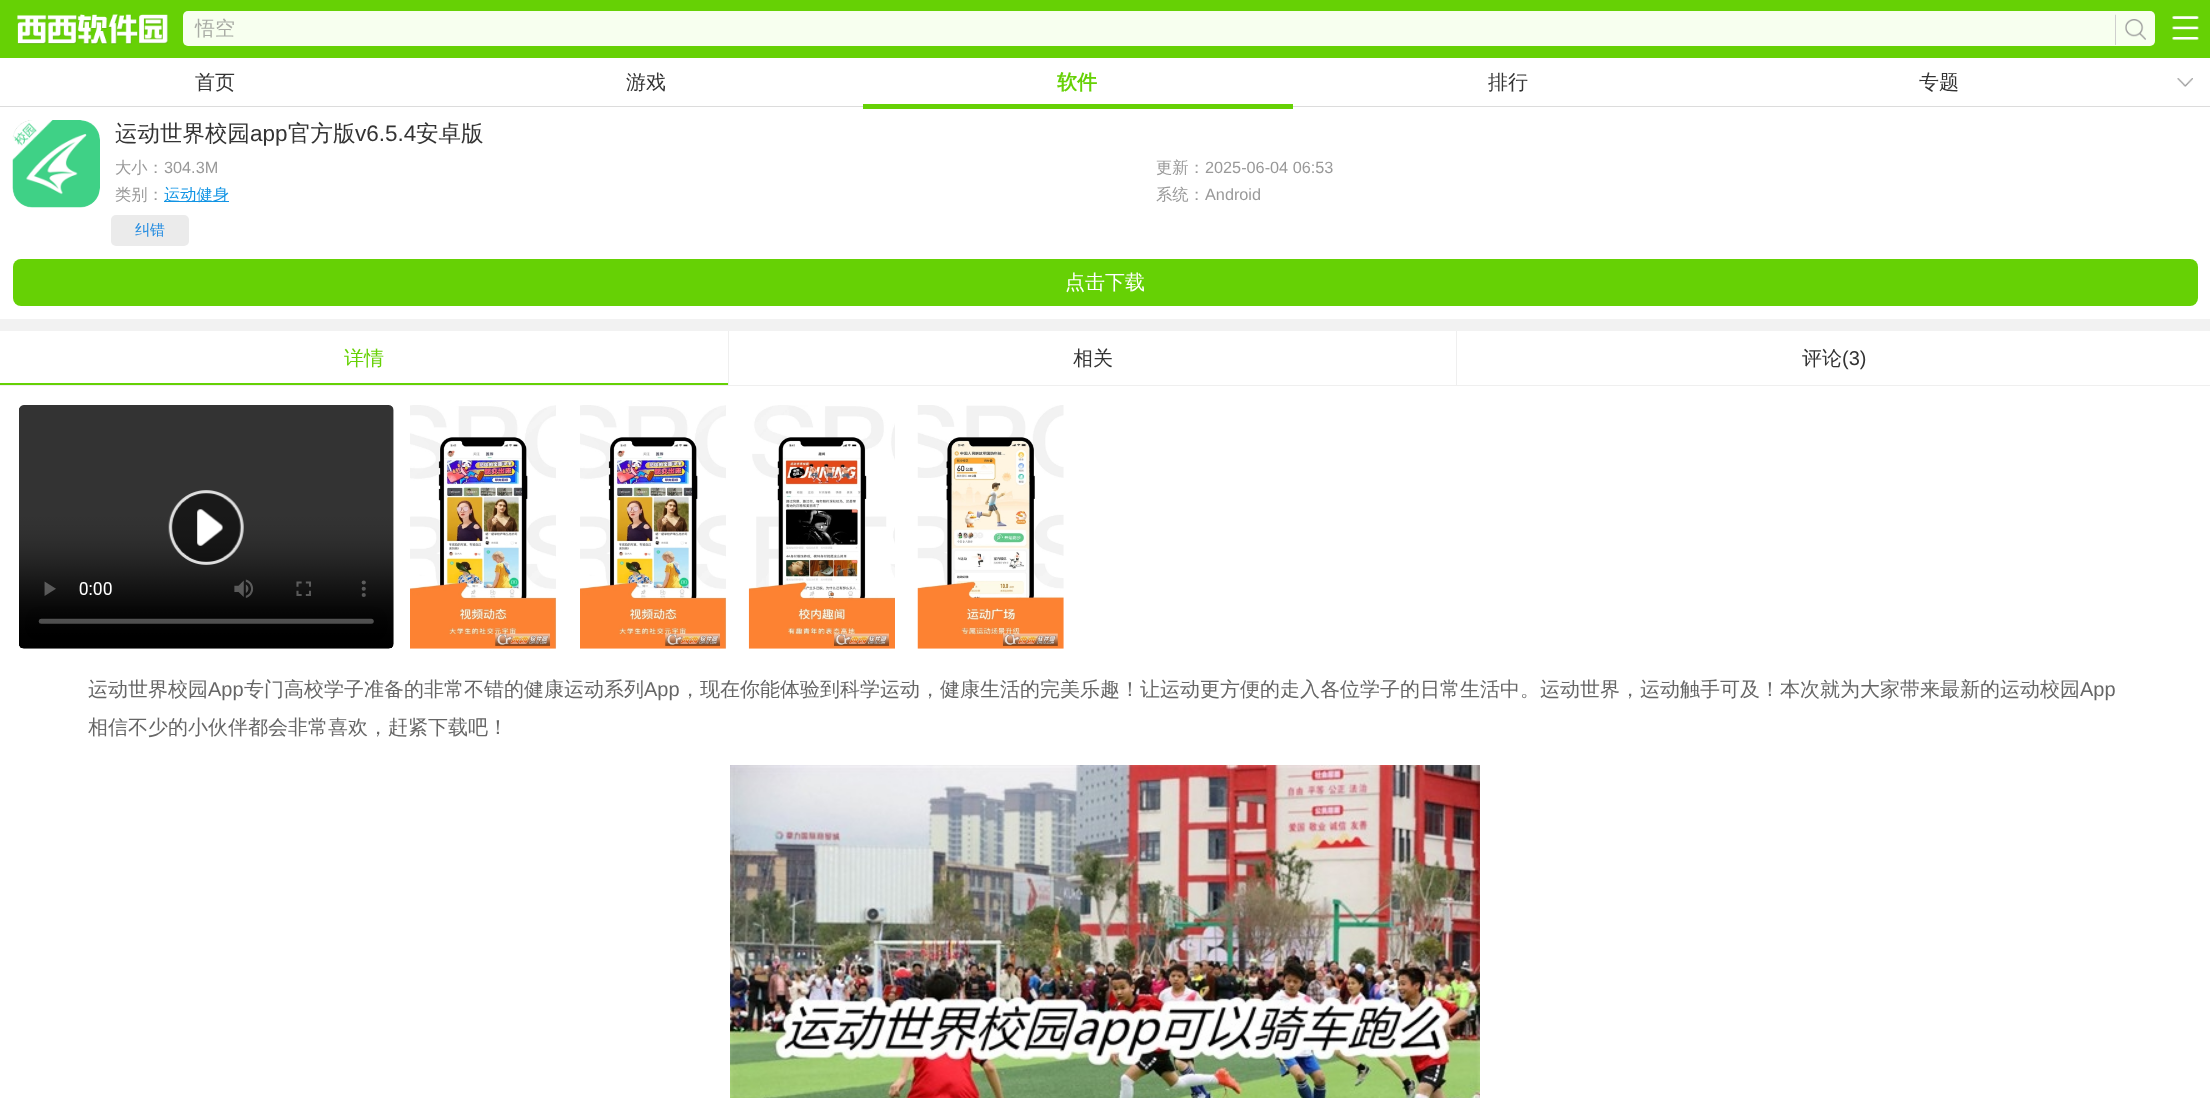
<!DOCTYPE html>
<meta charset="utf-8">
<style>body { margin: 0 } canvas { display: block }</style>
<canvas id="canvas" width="2210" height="1098"></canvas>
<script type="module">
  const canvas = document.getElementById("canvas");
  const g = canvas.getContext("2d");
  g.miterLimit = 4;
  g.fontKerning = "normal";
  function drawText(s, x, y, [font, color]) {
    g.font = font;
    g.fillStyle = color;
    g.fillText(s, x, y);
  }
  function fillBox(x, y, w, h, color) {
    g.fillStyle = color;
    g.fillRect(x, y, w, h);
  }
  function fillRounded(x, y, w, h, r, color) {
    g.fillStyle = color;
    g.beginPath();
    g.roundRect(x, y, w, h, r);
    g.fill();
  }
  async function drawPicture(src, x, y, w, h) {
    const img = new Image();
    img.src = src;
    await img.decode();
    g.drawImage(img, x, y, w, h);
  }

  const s1 = ["500 20px WenQuanYi Zen Hei", "#A9ACA5"];
  const s2 = ["500 20px WenQuanYi Zen Hei", "#333333"];
  const s3 = ["bold 20px WenQuanYi Zen Hei", "#66D105"];
  const s4 = ["500 22.5px WenQuanYi Zen Hei", "#333333"];
  const s5 = ["22.5px Liberation Sans", "#333333"];
  const s6 = ["500 16.25px WenQuanYi Zen Hei", "#999999"];
  const s7 = ["16.25px Liberation Sans", "#999999"];
  const s8 = ["500 16.25px WenQuanYi Zen Hei", "#1294E4"];
  const s9 = ["500 15px WenQuanYi Zen Hei", "#1E89E0"];
  const s10 = ["500 20px WenQuanYi Zen Hei", "#FFFFFF"];
  const s11 = ["500 20px WenQuanYi Zen Hei", "#66D105"];
  const s12 = ["20px Liberation Sans", "#333333"];
  const s13 = ["500 20px WenQuanYi Zen Hei", "#666666"];
  const s14 = ["20px Liberation Sans", "#666666"];

  fillBox(0, 0, 2210, 1098, "#F2F2F2");
  fillBox(0, 0, 2210, 58, "#66D105");
  await drawPicture("pic1.png", 17, 14, 151, 31);
  g.fillStyle = "#F7FFEF";
  g.beginPath();
  g.roundRect(183, 11, 1932, 35, [5, 0, 0, 5]);
  g.fill();
  drawText("悟空", 195, 35, s1);
  g.fillStyle = "#F7FFEF";
  g.beginPath();
  g.roundRect(2115, 11, 40, 35, [0, 5, 5, 0]);
  g.fill();
  await drawPicture("pic2.png", 2115, 14, 31, 31);
  await drawPicture("pic3.png", 2172, 16, 27, 24);
  fillBox(0, 58, 2210, 261, "#FFFFFF");
  fillBox(0, 106, 2210, 1, "#DCDCDC");
  drawText("首页", 195, 89, s2);
  drawText("游戏", 626, 89, s2);
  fillBox(863, 104, 430, 5, "#66D105");
  drawText("软件", 1057, 89, s3);
  drawText("排行", 1488, 89, s2);
  drawText("专题", 1919, 89, s2);
  await drawPicture("pic4.png", 2177, 78, 16, 9);
  await drawPicture("pic5.png", 12, 120, 88, 88);
  drawText("运动世界校园", 115, 141, s4);
  drawText("app", 250, 141, s5);
  drawText("官方版", 288, 141, s4);
  drawText("v6.5.4", 355, 141, s5);
  drawText("安卓版", 416, 141, s4);
  drawText("大小：", 115, 173, s6);
  drawText("304.3M", 164, 173, s7);
  drawText("更新：", 1156, 173, s6);
  drawText("2025-06-04 06:53", 1205, 173, s7);
  drawText("类别：", 115, 200, s6);
  fillBox(164, 201, 65, 1, "#1294E4");
  drawText("运动健身", 164, 200, s8);
  drawText("系统：", 1156, 200, s6);
  drawText("Android", 1205, 200, s7);
  fillRounded(111, 215, 78, 31, 5, "#EBEBEB");
  drawText("纠错", 135, 235, s9);
  fillRounded(13, 259, 2185, 47, 8, "#66D105");
  drawText("点击下载", 1065, 289, s10);
  fillBox(0, 331, 2210, 54, "#FFFFFF");
  fillBox(0, 385, 2210, 1, "#EFEFEF");
  fillBox(728, 331, 1, 54, "#EFEFEF");
  fillBox(0, 383, 728, 2, "#66D105");
  drawText("详情", 344, 365, s11);
  fillBox(1456, 331, 1, 54, "#EFEFEF");
  drawText("相关", 1073, 365, s2);
  drawText("评论", 1802, 365, s2);
  drawText("(3)", 1842, 365, s12);
  fillBox(0, 386, 2210, 712, "#FFFFFF");
  await drawPicture("pic6.png", 19, 405, 375, 244);
  await drawPicture("pic7.png", 168, 490, 76, 75);
  await drawPicture("pic8.png", 410, 405, 147, 244);
  await drawPicture("pic9.png", 580, 405, 147, 244);
  await drawPicture("pic10.png", 748, 405, 147, 244);
  await drawPicture("pic11.png", 917, 405, 147, 244);
  drawText("运动世界校园", 88, 696, s13);
  drawText("App", 208, 696, s14);
  drawText("专门高校学子准备的非常不错的健康运动系列", 244, 696, s13);
  drawText("App", 644, 696, s14);
  drawText("，现在你能体验到科学运动，健康生活的完美乐趣！让运动更方便的走入各位学子的日常生活中。运动世界，运动触手可及！本次就为大家带来最新的运动校园", 680, 696, s13);
  drawText("App", 2080, 696, s14);
  drawText("相信不少的小伙伴都会非常喜欢，赶紧下载吧！", 88, 734, s13);
  await drawPicture("pic12.png", 730, 765, 750, 333);
</script>
